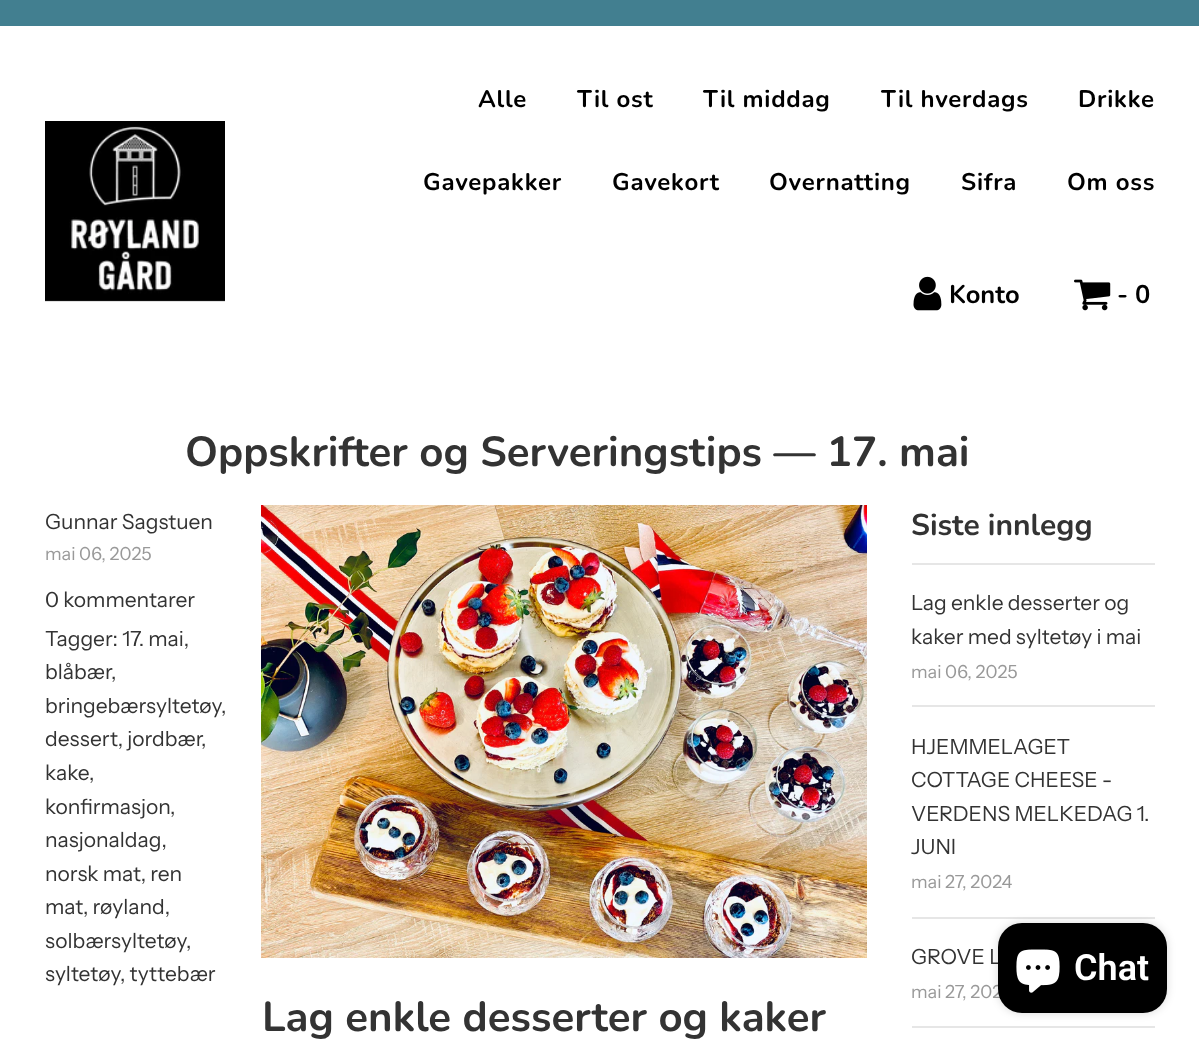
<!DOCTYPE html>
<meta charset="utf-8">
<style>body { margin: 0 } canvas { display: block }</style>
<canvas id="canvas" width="1199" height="1044"></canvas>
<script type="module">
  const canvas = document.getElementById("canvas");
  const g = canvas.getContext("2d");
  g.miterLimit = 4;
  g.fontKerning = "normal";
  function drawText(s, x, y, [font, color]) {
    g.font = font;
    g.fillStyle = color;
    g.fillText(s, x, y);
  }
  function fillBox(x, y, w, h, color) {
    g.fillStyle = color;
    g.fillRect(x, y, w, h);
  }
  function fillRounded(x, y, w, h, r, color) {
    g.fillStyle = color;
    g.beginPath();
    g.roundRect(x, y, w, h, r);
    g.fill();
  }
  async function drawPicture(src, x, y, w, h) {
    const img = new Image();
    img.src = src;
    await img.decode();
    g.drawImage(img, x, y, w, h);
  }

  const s1 = ["bold 24px Nunito", "#000000"];
  const s2 = ["bold 25.5px Nunito", "#000000"];
  const s3 = ["bold 42px Nunito", "#333333"];
  const s4 = ["21px Instrument Sans", "#333333"];
  const s5 = ["18px Instrument Sans", "#999999"];
  const s6 = ["bold 30px Nunito", "#333333"];
  const s7 = ["600 36px Roboto", "#FFFFFF"];

  fillBox(0, 0, 1199, 1044, "#FFFFFF");
  fillBox(0, 0, 1199, 26, "#427F90");
  await drawPicture("pic1.png", 45, 121, 180, 181);
  g.letterSpacing = "0.75px";
  drawText("Alle", 478, 107, s1);
  drawText("Til ost", 577, 107, s1);
  drawText("Til middag", 703, 107, s1);
  drawText("Til hverdags", 881, 107, s1);
  drawText("Drikke", 1078, 107, s1);
  drawText("Gavepakker", 423, 190, s1);
  drawText("Gavekort", 612, 190, s1);
  drawText("Overnatting", 769, 190, s1);
  drawText("Sifra", 961, 190, s1);
  drawText("Om oss", 1067, 190, s1);
  await drawPicture("pic2.png", 913, 276, 29, 35);
  g.letterSpacing = "0px";
  drawText("Konto", 949, 303, s2);
  await drawPicture("pic3.png", 1074, 279, 37, 32);
  drawText("- 0", 1117, 303, s2);
  drawText("Oppskrifter og Serveringstips — 17. mai", 185, 466, s3);
  drawText("Gunnar Sagstuen", 45, 529, s4);
  drawText("mai 06, 2025", 45, 560, s5);
  drawText("0 kommentarer", 45, 607, s4);
  drawText("Tagger: 17. mai,", 45, 646, s4);
  drawText("blåbær", 45, 679, s4);
  drawText(",", 111, 679, s4);
  drawText("bringebærsyltetøy", 45, 713, s4);
  drawText(",", 221, 713, s4);
  drawText("dessert, jordbær", 45, 746, s4);
  drawText(",", 201, 746, s4);
  drawText("kake", 45, 780, s4);
  drawText(",", 89, 780, s4);
  drawText("konfirmasjon", 45, 814, s4);
  drawText(",", 170, 814, s4);
  drawText("nasjonaldag,", 45, 847, s4);
  drawText("norsk mat, ren", 45, 881, s4);
  drawText("mat, røyland,", 45, 914, s4);
  drawText("solbærsyltetøy", 45, 948, s4);
  drawText(",", 186, 948, s4);
  drawText("syltetøy", 45, 981, s4);
  drawText(", tyttebær", 120, 981, s4);
  await drawPicture("pic4.png", 261, 505, 606, 453);
  drawText("Lag enkle desserter og kaker", 262, 1031, s3);
  drawText("Siste innlegg", 911, 535, s6);
  fillBox(912, 563, 243, 2, "#E6E6E6");
  drawText("Lag enkle desserter og", 911, 610, s4);
  drawText("kaker med syltetøy i mai", 911, 644, s4);
  drawText("mai 06, 2025", 911, 678, s5);
  fillBox(912, 705, 243, 2, "#E6E6E6");
  drawText("HJEMMELAGET", 911, 754, s4);
  drawText("COTTAGE CHEESE -", 911, 787, s4);
  drawText("VERDENS MELKEDAG 1.", 911, 821, s4);
  drawText("JUNI", 911, 854, s4);
  drawText("mai 27, 2024", 911, 888, s5);
  fillBox(912, 917, 243, 2, "#E6E6E6");
  drawText("GROVE L", 911, 964, s4);
  drawText("mai 27, 202", 911, 998, s5);
  fillBox(912, 1026, 243, 2, "#E6E6E6");
  g.fillStyle = "rgba(0, 0, 0, 0.15)";
  g.filter = "blur(4px)";
  g.beginPath();
  g.roundRect(998, 923, 169, 90, 24);
  g.fill();
  g.filter = "none";
  fillRounded(998, 923, 169, 90, 24, "#000000");
  await drawPicture("pic5.png", 1016, 949, 44, 44);
  drawText("Chat", 1074, 980, s7);
</script>
